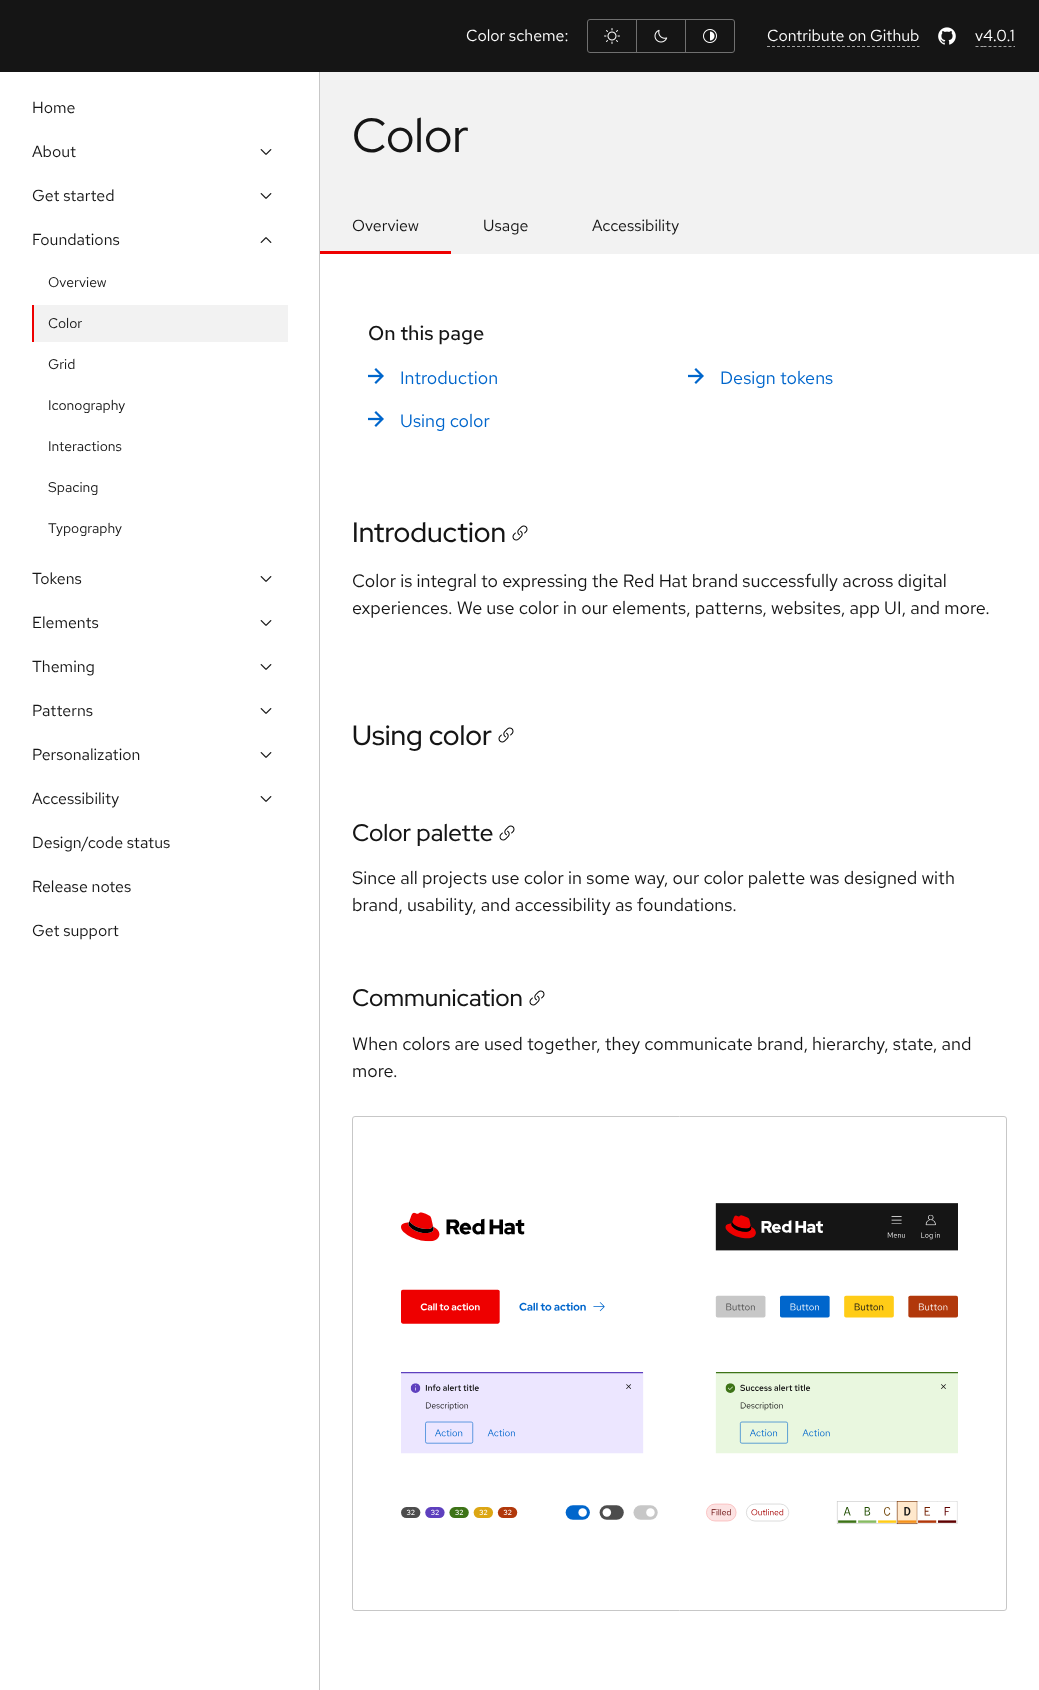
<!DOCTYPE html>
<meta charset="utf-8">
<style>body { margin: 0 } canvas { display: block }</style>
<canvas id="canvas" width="1039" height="1690"></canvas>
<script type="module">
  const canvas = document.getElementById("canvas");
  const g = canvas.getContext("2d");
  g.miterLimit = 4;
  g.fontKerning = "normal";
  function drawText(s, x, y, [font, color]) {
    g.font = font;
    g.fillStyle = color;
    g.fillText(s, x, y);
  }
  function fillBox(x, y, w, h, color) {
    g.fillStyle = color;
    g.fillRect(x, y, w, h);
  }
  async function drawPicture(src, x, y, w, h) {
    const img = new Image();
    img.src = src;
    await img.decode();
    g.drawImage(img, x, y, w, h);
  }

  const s1 = ["16px Red Hat Text", "#FFFFFF"];
  const s2 = ["16px Red Hat Text", "#151515"];
  const s3 = ["14px Red Hat Text", "#151515"];
  const s4 = ["48px Red Hat Display", "#151515"];
  const s5 = ["500 20px Red Hat Text", "#151515"];
  const s6 = ["18px Red Hat Text", "#0066CC"];
  const s7 = ["500 28px Red Hat Display", "#151515"];
  const s8 = ["18px Red Hat Text", "#151515"];
  const s9 = ["500 24px Red Hat Display", "#151515"];

  fillBox(0, 0, 1039, 1690, "#FFFFFF");
  fillBox(0, 0, 1039, 72, "#151515");
  drawText("Color scheme:", 466, 41, s1);
  g.beginPath();
  g.roundRect(587.5, 19.5, 49, 33, [2.5, 0, 0, 2.5]);
  g.strokeStyle = "#707070";
  g.stroke();
  await drawPicture("pic1.png", 604, 28, 16, 16);
  g.strokeRect(636.5, 19.5, 49, 33);
  await drawPicture("pic2.png", 654, 29, 14, 14);
  g.beginPath();
  g.roundRect(685.5, 19.5, 49, 33, [0, 2.5, 2.5, 0]);
  g.stroke();
  await drawPicture("pic3.png", 703, 29, 14, 14);
  drawText("Contribute on Github", 767, 41, s1);
  g.beginPath();
  g.moveTo(767, 46.5);
  g.lineTo(919.5, 46.5);
  g.strokeStyle = "#A3A3A3";
  g.setLineDash([3, 2]);
  g.stroke();
  await drawPicture("pic4.png", 938, 27, 18, 18);
  drawText("v4.0.1", 975, 41, s1);
  g.beginPath();
  g.moveTo(975.5, 46.5);
  g.lineTo(978.5, 46.5);
  g.moveTo(980.5, 46.5);
  g.lineTo(983.5, 46.5);
  g.setLineDash([]);
  g.stroke();
  g.beginPath();
  g.moveTo(983.5, 46.5);
  g.lineTo(1015, 46.5);
  g.setLineDash([3, 2]);
  g.stroke();
  fillBox(319, 72, 1, 1618, "#C7C7C7");
  drawText("Home", 32, 113, s2);
  drawText("About", 32, 157, s2);
  await drawPicture("pic5.png", 260, 149, 12, 6);
  drawText("Get started", 32, 201, s2);
  await drawPicture("pic5.png", 260, 193, 12, 6);
  drawText("Foundations", 32, 245, s2);
  await drawPicture("pic6.png", 260, 237, 12, 6);
  drawText("Overview", 48, 287, s3);
  fillBox(34, 305, 254, 37, "#F2F2F2");
  fillBox(32, 305, 2, 37, "#EE0000");
  drawText("Color", 48, 328, s3);
  drawText("Grid", 48, 369, s3);
  drawText("Iconography", 48, 410, s3);
  drawText("Interactions", 48, 451, s3);
  drawText("Spacing", 48, 492, s3);
  drawText("Typography", 48, 533, s3);
  drawText("Tokens", 32, 584, s2);
  await drawPicture("pic5.png", 260, 576, 12, 6);
  drawText("Elements", 32, 628, s2);
  await drawPicture("pic5.png", 260, 620, 12, 6);
  drawText("Theming", 32, 672, s2);
  await drawPicture("pic5.png", 260, 664, 12, 6);
  drawText("Patterns", 32, 716, s2);
  await drawPicture("pic5.png", 260, 708, 12, 6);
  drawText("Personalization", 32, 760, s2);
  await drawPicture("pic5.png", 260, 752, 12, 6);
  drawText("Accessibility", 32, 804, s2);
  await drawPicture("pic5.png", 260, 796, 12, 6);
  drawText("Design/code status", 32, 848, s2);
  drawText("Release notes", 32, 892, s2);
  drawText("Get support", 32, 936, s2);
  fillBox(320, 72, 719, 182, "#F2F2F2");
  drawText("Color", 352, 152, s4);
  drawText("Overview", 352, 231, s2);
  fillBox(320, 251, 131, 3, "#EE0000");
  drawText("Usage", 483, 231, s2);
  drawText("Accessibility", 592, 231, s2);
  drawText("On this page", 368, 340, s5);
  await drawPicture("pic7.png", 368, 368, 16, 16);
  drawText("Introduction", 400, 384, s6);
  await drawPicture("pic7.png", 688, 368, 16, 16);
  drawText("Design tokens", 720, 384, s6);
  await drawPicture("pic7.png", 368, 411, 16, 16);
  drawText("Using color", 400, 427, s6);
  drawText("Introduction", 352, 542, s7);
  await drawPicture("pic8.png", 512, 525, 16, 16);
  drawText("Color is integral to expressing the Red Hat brand successfully across digital", 352, 587, s8);
  drawText("experiences. We use color in our elements, patterns, websites, app UI, and more.", 352, 614, s8);
  drawText("Using color", 352, 745, s7);
  await drawPicture("pic8.png", 498, 727, 16, 16);
  drawText("Color palette", 352, 841, s9);
  await drawPicture("pic8.png", 499, 825, 16, 16);
  drawText("Since all projects use color in some way, our color palette was designed with", 352, 884, s8);
  drawText("brand, usability, and accessibility as foundations.", 352, 911, s8);
  drawText("Communication", 352, 1006, s9);
  await drawPicture("pic8.png", 529, 990, 16, 16);
  drawText("When colors are used together, they communicate brand, hierarchy, state, and", 352, 1050, s8);
  drawText("more.", 352, 1077, s8);
  g.beginPath();
  g.roundRect(352.5, 1116.5, 654, 494, 2.5);
  g.strokeStyle = "#C7C7C7";
  g.setLineDash([]);
  g.stroke();
  await drawPicture("pic9.png", 401, 1203, 557, 322);
</script>
